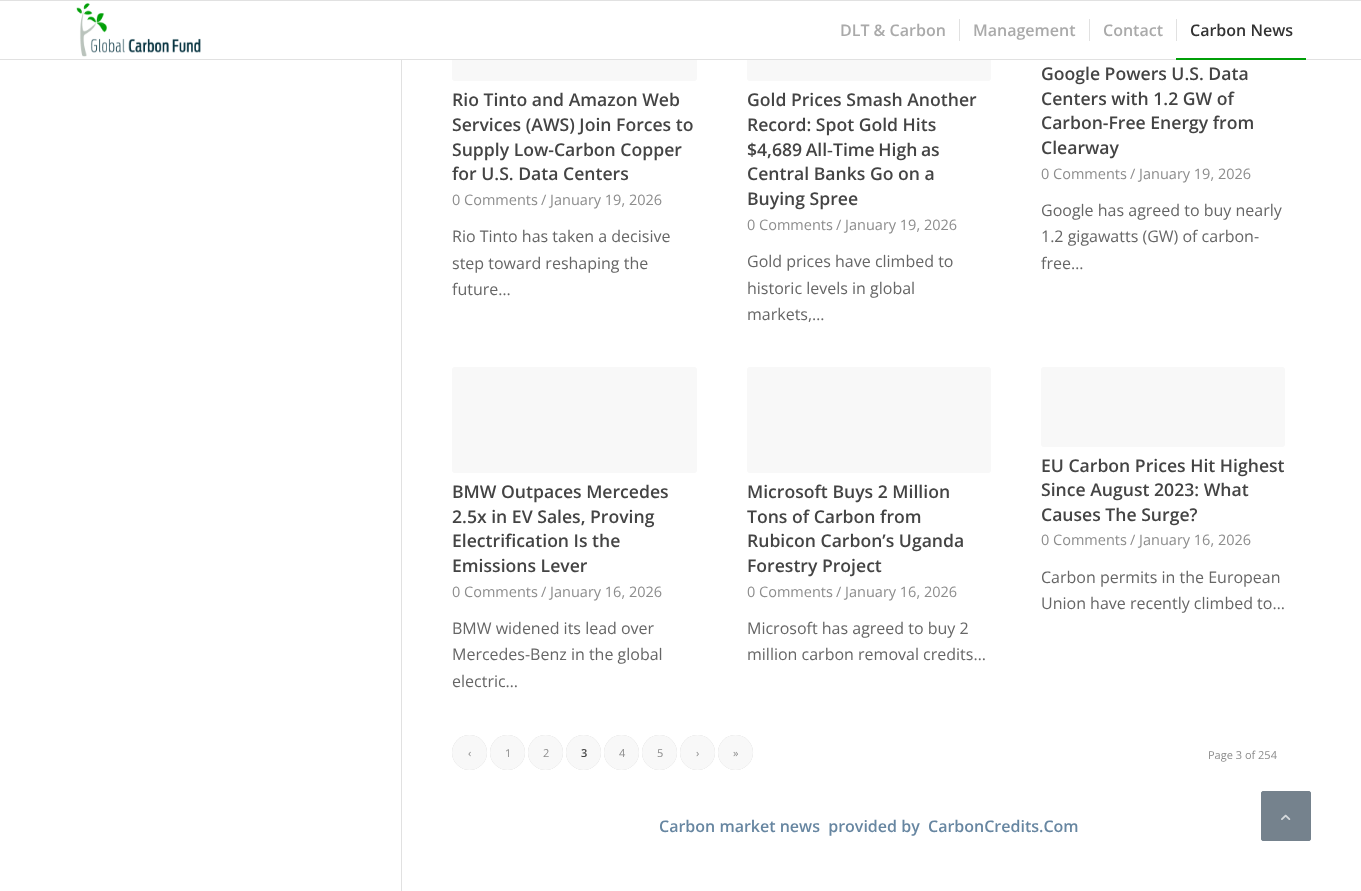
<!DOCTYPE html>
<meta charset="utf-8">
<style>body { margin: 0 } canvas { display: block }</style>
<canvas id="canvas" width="1361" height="891"></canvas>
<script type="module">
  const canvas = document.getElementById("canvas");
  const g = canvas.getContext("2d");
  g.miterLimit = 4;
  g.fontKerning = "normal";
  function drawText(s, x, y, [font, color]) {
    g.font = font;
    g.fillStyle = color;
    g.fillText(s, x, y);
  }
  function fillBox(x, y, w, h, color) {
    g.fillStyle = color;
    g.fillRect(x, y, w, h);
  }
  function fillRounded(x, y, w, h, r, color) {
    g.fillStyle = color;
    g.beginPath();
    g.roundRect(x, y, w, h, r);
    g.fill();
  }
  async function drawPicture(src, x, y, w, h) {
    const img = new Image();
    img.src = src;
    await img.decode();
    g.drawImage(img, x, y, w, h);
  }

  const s1 = ["600 16px Open Sans", "#AAAAAA"];
  const s2 = ["600 16px Open Sans", "#333333"];
  const s3 = ["600 17.6px Open Sans", "#444444"];
  const s4 = ["14.5px Open Sans", "#8D8D8D"];
  const s5 = ["16px Open Sans", "#666666"];
  const s6 = ["11px Open Sans", "#8D8D8D"];
  const s7 = ["600 11px Open Sans", "#444444"];
  const s8 = ["600 16px Open Sans", "#6786A1"];

  fillBox(0, 0, 1361, 891, "#FFFFFF");
  fillRounded(452, -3, 245, 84, 3, "#F8F8F8");
  fillRounded(747, -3, 244, 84, 3, "#F8F8F8");
  fillBox(0, 0, 1361, 1, "#E1E1E1");
  fillBox(0, 59, 1361, 1, "#E1E1E1");
  await drawPicture("pic1.png", 76, 3, 125, 54);
  fillBox(747, 1, 244, 58, "#FFFFFF");
  drawText("DLT & Carbon", 840, 36, s1);
  drawText("Management", 973, 36, s1);
  fillBox(959, 19, 1, 22, "#E1E1E1");
  drawText("Contact", 1103, 36, s1);
  fillBox(1089, 19, 1, 22, "#E1E1E1");
  drawText("Carbon News", 1190, 36, s2);
  fillBox(1176, 19, 1, 22, "#E1E1E1");
  fillBox(1176, 58, 130, 2, "#009F08");
  fillBox(401, 60, 1, 831, "#E1E1E1");
  fillBox(452, 1, 245, 58, "#FFFFFF");
  drawText("Rio Tinto and Amazon Web", 452, 106, s3);
  drawText("Services (AWS) Join Forces to", 452, 131, s3);
  drawText("Supply Low-Carbon Copper", 452, 156, s3);
  drawText("for U.S. Data Centers", 452, 180, s3);
  drawText("0 Comments", 452, 205, s4);
  drawText("/ January 19, 2026", 541, 205, s4);
  drawText("Rio Tinto has taken a decisive", 452, 242, s5);
  drawText("step toward reshaping the", 452, 269, s5);
  drawText("future…", 452, 295, s5);
  drawText("Gold Prices Smash Another", 747, 106, s3);
  drawText("Record: Spot Gold Hits", 747, 131, s3);
  g.wordSpacing = "-1px";
  drawText("$4,689 All‑Time High as", 747, 156, s3);
  g.wordSpacing = "0px";
  drawText("Central Banks Go on a", 747, 180, s3);
  drawText("Buying Spree", 747, 205, s3);
  drawText("0 Comments", 747, 230, s4);
  drawText("/ January 19, 2026", 836, 230, s4);
  drawText("Gold prices have climbed to", 747, 267, s5);
  drawText("historic levels in global", 747, 294, s5);
  drawText("markets,…", 747, 320, s5);
  drawText("Google Powers U.S. Data", 1041, 80, s3);
  drawText("Centers with 1.2 GW of", 1041, 105, s3);
  drawText("Carbon-Free Energy from", 1041, 129, s3);
  drawText("Clearway", 1041, 154, s3);
  drawText("0 Comments", 1041, 179, s4);
  drawText("/ January 19, 2026", 1130, 179, s4);
  drawText("Google has agreed to buy nearly", 1041, 216, s5);
  drawText("1.2 gigawatts (GW) of carbon-", 1041, 242, s5);
  drawText("free…", 1041, 269, s5);
  fillRounded(452, 367, 245, 106, 3, "#F8F8F8");
  drawText("BMW Outpaces Mercedes", 452, 498, s3);
  drawText("2.5x in EV Sales, Proving", 452, 523, s3);
  drawText("Electrification Is the", 452, 547, s3);
  drawText("Emissions Lever", 452, 572, s3);
  drawText("0 Comments", 452, 597, s4);
  drawText("/ January 16, 2026", 541, 597, s4);
  drawText("BMW widened its lead over", 452, 634, s5);
  drawText("Mercedes-Benz in the global", 452, 660, s5);
  drawText("electric…", 452, 687, s5);
  fillRounded(747, 367, 244, 106, 3, "#F8F8F8");
  drawText("Microsoft Buys 2 Million", 747, 498, s3);
  drawText("Tons of Carbon from", 747, 523, s3);
  drawText("Rubicon Carbon’s Uganda", 747, 547, s3);
  drawText("Forestry Project", 747, 572, s3);
  drawText("0 Comments", 747, 597, s4);
  drawText("/ January 16, 2026", 836, 597, s4);
  drawText("Microsoft has agreed to buy 2", 747, 634, s5);
  drawText("million carbon removal credits…", 747, 660, s5);
  fillRounded(1041, 367, 244, 80, 3, "#F8F8F8");
  drawText("EU Carbon Prices Hit Highest", 1041, 472, s3);
  drawText("Since August 2023: What", 1041, 496, s3);
  drawText("Causes The Surge?", 1041, 521, s3);
  drawText("0 Comments", 1041, 545, s4);
  drawText("/ January 16, 2026", 1130, 545, s4);
  drawText("Carbon permits in the European", 1041, 583, s5);
  drawText("Union have recently climbed to…", 1041, 609, s5);
  g.fillStyle = "rgba(0, 0, 0, 0.2)";
  g.filter = "blur(0.5px)";
  g.beginPath();
  g.roundRect(452, 735, 35, 35, 17.5);
  g.fill();
  g.filter = "none";
  g.fillStyle = "#F8F8F8";
  g.beginPath();
  g.arc(469.5, 752.5, 17.5, 0, Math.PI * 2);
  g.fill();
  drawText("‹", 468, 757, s6);
  g.fillStyle = "rgba(0, 0, 0, 0.2)";
  g.filter = "blur(0.5px)";
  g.beginPath();
  g.roundRect(490, 735, 35, 35, 17.5);
  g.fill();
  g.filter = "none";
  g.fillStyle = "#F8F8F8";
  g.beginPath();
  g.arc(507.5, 752.5, 17.5, 0, Math.PI * 2);
  g.fill();
  drawText("1", 505, 757, s6);
  g.fillStyle = "rgba(0, 0, 0, 0.2)";
  g.filter = "blur(0.5px)";
  g.beginPath();
  g.roundRect(528, 735, 35, 35, 17.5);
  g.fill();
  g.filter = "none";
  g.fillStyle = "#F8F8F8";
  g.beginPath();
  g.arc(545.5, 752.5, 17.5, 0, Math.PI * 2);
  g.fill();
  drawText("2", 543, 757, s6);
  g.fillStyle = "rgba(0, 0, 0, 0.2)";
  g.filter = "blur(0.5px)";
  g.beginPath();
  g.roundRect(566, 735, 35, 35, 17.5);
  g.fill();
  g.filter = "none";
  g.fillStyle = "#F8F8F8";
  g.beginPath();
  g.arc(583.5, 752.5, 17.5, 0, Math.PI * 2);
  g.fill();
  drawText("3", 581, 757, s7);
  g.fillStyle = "rgba(0, 0, 0, 0.2)";
  g.filter = "blur(0.5px)";
  g.beginPath();
  g.roundRect(604, 735, 35, 35, 17.5);
  g.fill();
  g.filter = "none";
  g.fillStyle = "#F8F8F8";
  g.beginPath();
  g.arc(621.5, 752.5, 17.5, 0, Math.PI * 2);
  g.fill();
  drawText("4", 619, 757, s6);
  g.fillStyle = "rgba(0, 0, 0, 0.2)";
  g.filter = "blur(0.5px)";
  g.beginPath();
  g.roundRect(642, 735, 35, 35, 17.5);
  g.fill();
  g.filter = "none";
  g.fillStyle = "#F8F8F8";
  g.beginPath();
  g.arc(659.5, 752.5, 17.5, 0, Math.PI * 2);
  g.fill();
  drawText("5", 657, 757, s6);
  g.fillStyle = "rgba(0, 0, 0, 0.2)";
  g.filter = "blur(0.5px)";
  g.beginPath();
  g.roundRect(680, 735, 35, 35, 17.5);
  g.fill();
  g.filter = "none";
  g.fillStyle = "#F8F8F8";
  g.beginPath();
  g.arc(697.5, 752.5, 17.5, 0, Math.PI * 2);
  g.fill();
  drawText("›", 696, 757, s6);
  g.fillStyle = "rgba(0, 0, 0, 0.2)";
  g.filter = "blur(0.5px)";
  g.beginPath();
  g.roundRect(718, 735, 35, 35, 17.5);
  g.fill();
  g.filter = "none";
  g.fillStyle = "#F8F8F8";
  g.beginPath();
  g.arc(735.5, 752.5, 17.5, 0, Math.PI * 2);
  g.fill();
  drawText("»", 733, 757, s6);
  drawText("Page 3 of 254", 1208, 759, s6);
  drawText("Carbon market news  provided by", 659, 832, s8);
  drawText("CarbonCredits.Com", 928, 832, s8);
  g.fillStyle = "#75828D";
  g.beginPath();
  g.roundRect(1261.5, 791.5, 49, 49, 1.5);
  g.fill();
  g.strokeStyle = "#75828D";
  g.stroke();
  await drawPicture("pic2.png", 1281, 814, 10, 6);
</script>
